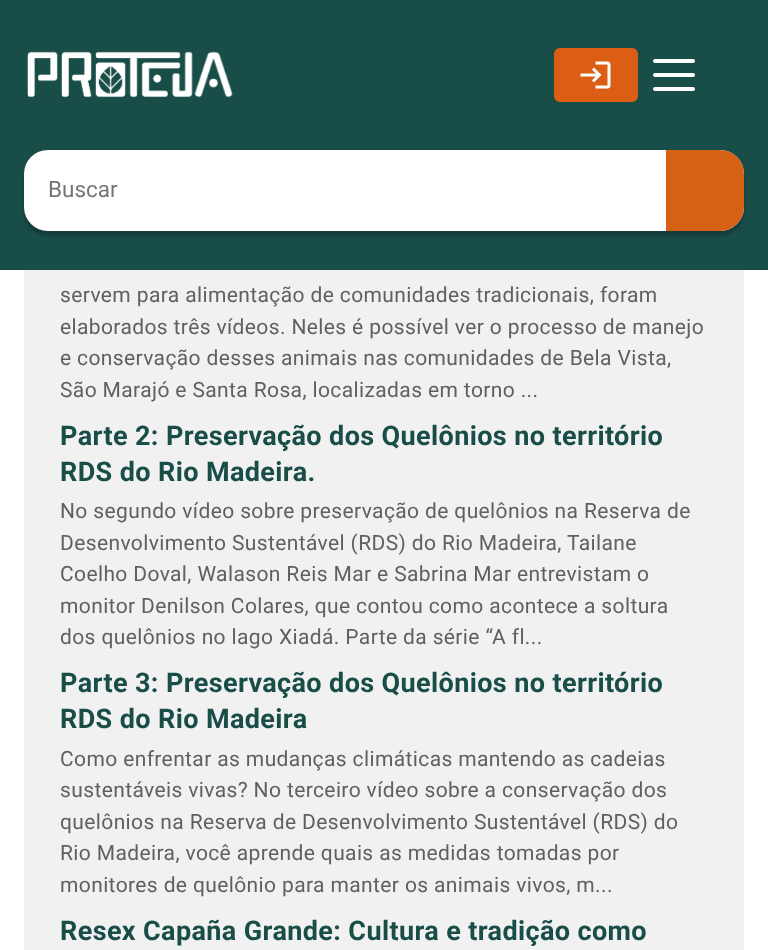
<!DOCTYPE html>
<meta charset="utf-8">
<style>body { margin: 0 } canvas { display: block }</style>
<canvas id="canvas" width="768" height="950"></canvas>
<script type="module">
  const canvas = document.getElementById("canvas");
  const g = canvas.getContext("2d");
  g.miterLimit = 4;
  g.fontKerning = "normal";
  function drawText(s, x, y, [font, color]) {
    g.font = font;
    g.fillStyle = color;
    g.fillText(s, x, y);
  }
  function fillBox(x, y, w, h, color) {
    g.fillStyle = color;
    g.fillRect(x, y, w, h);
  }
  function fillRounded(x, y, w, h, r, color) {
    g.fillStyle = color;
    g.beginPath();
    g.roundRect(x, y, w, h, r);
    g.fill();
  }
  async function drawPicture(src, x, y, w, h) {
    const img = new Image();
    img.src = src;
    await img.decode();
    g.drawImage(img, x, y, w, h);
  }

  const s1 = ["22.5px Roboto", "#757575"];
  const s2 = ["21px Roboto", "#606060"];
  const s3 = ["bold 27px Roboto", "#194D48"];

  fillBox(0, 0, 768, 950, "#FFFFFF");
  fillBox(0, 0, 768, 270, "#194D48");
  await drawPicture("pic1.png", 27, 51, 206, 47);
  fillRounded(554, 48, 84, 54, 6, "#DC5E14");
  await drawPicture("pic2.png", 580, 61, 31, 28);
  fillRounded(653, 59, 42, 4, 2, "#FFFFFF");
  fillRounded(653, 73, 42, 4, 2, "#FFFFFF");
  fillRounded(653, 87, 42, 4, 2, "#FFFFFF");
  g.fillStyle = "rgba(0, 0, 0, 0.2)";
  g.filter = "blur(1px)";
  g.beginPath();
  g.roundRect(24, 155, 720, 81, 24);
  g.fill();
  g.filter = "none";
  fillRounded(24, 150, 720, 81, 24, "#FFFFFF");
  drawText("Buscar", 48, 197, s1);
  g.fillStyle = "#D56115";
  g.beginPath();
  g.roundRect(666, 150, 78, 81, [0, 24, 24, 0]);
  g.fill();
  fillBox(24, 270, 720, 680, "#F1F1F1");
  g.letterSpacing = "0.38px";
  drawText("servem para alimentação de comunidades tradicionais, foram", 60, 302, s2);
  drawText("elaborados três vídeos. Neles é possível ver o processo de manejo", 60, 334, s2);
  drawText("e conservação desses animais nas comunidades de Bela Vista,", 60, 365, s2);
  drawText("São Marajó e Santa Rosa, localizadas em torno ...", 60, 397, s2);
  drawText("Parte 2: Preservação dos Quelônios no território", 60, 445, s3);
  drawText("RDS do Rio Madeira.", 60, 481, s3);
  drawText("No segundo vídeo sobre preservação de quelônios na Reserva de", 60, 518, s2);
  drawText("Desenvolvimento Sustentável (RDS) do Rio Madeira, Tailane", 60, 550, s2);
  drawText("Coelho Doval, Walason Reis Mar e Sabrina Mar entrevistam o", 60, 581, s2);
  drawText("monitor Denilson Colares, que contou como acontece a soltura", 60, 613, s2);
  drawText("dos quelônios no lago Xiadá. Parte da série “A fl...", 60, 644, s2);
  drawText("Parte 3: Preservação dos Quelônios no território", 60, 692, s3);
  drawText("RDS do Rio Madeira", 60, 728, s3);
  drawText("Como enfrentar as mudanças climáticas mantendo as cadeias", 60, 766, s2);
  drawText("sustentáveis vivas? No terceiro vídeo sobre a conservação dos", 60, 797, s2);
  drawText("quelônios na Reserva de Desenvolvimento Sustentável (RDS) do", 60, 829, s2);
  drawText("Rio Madeira, você aprende quais as medidas tomadas por", 60, 860, s2);
  drawText("monitores de quelônio para manter os animais vivos, m...", 60, 892, s2);
  drawText("Resex Capaña Grande: Cultura e tradição como", 60, 940, s3);
</script>
